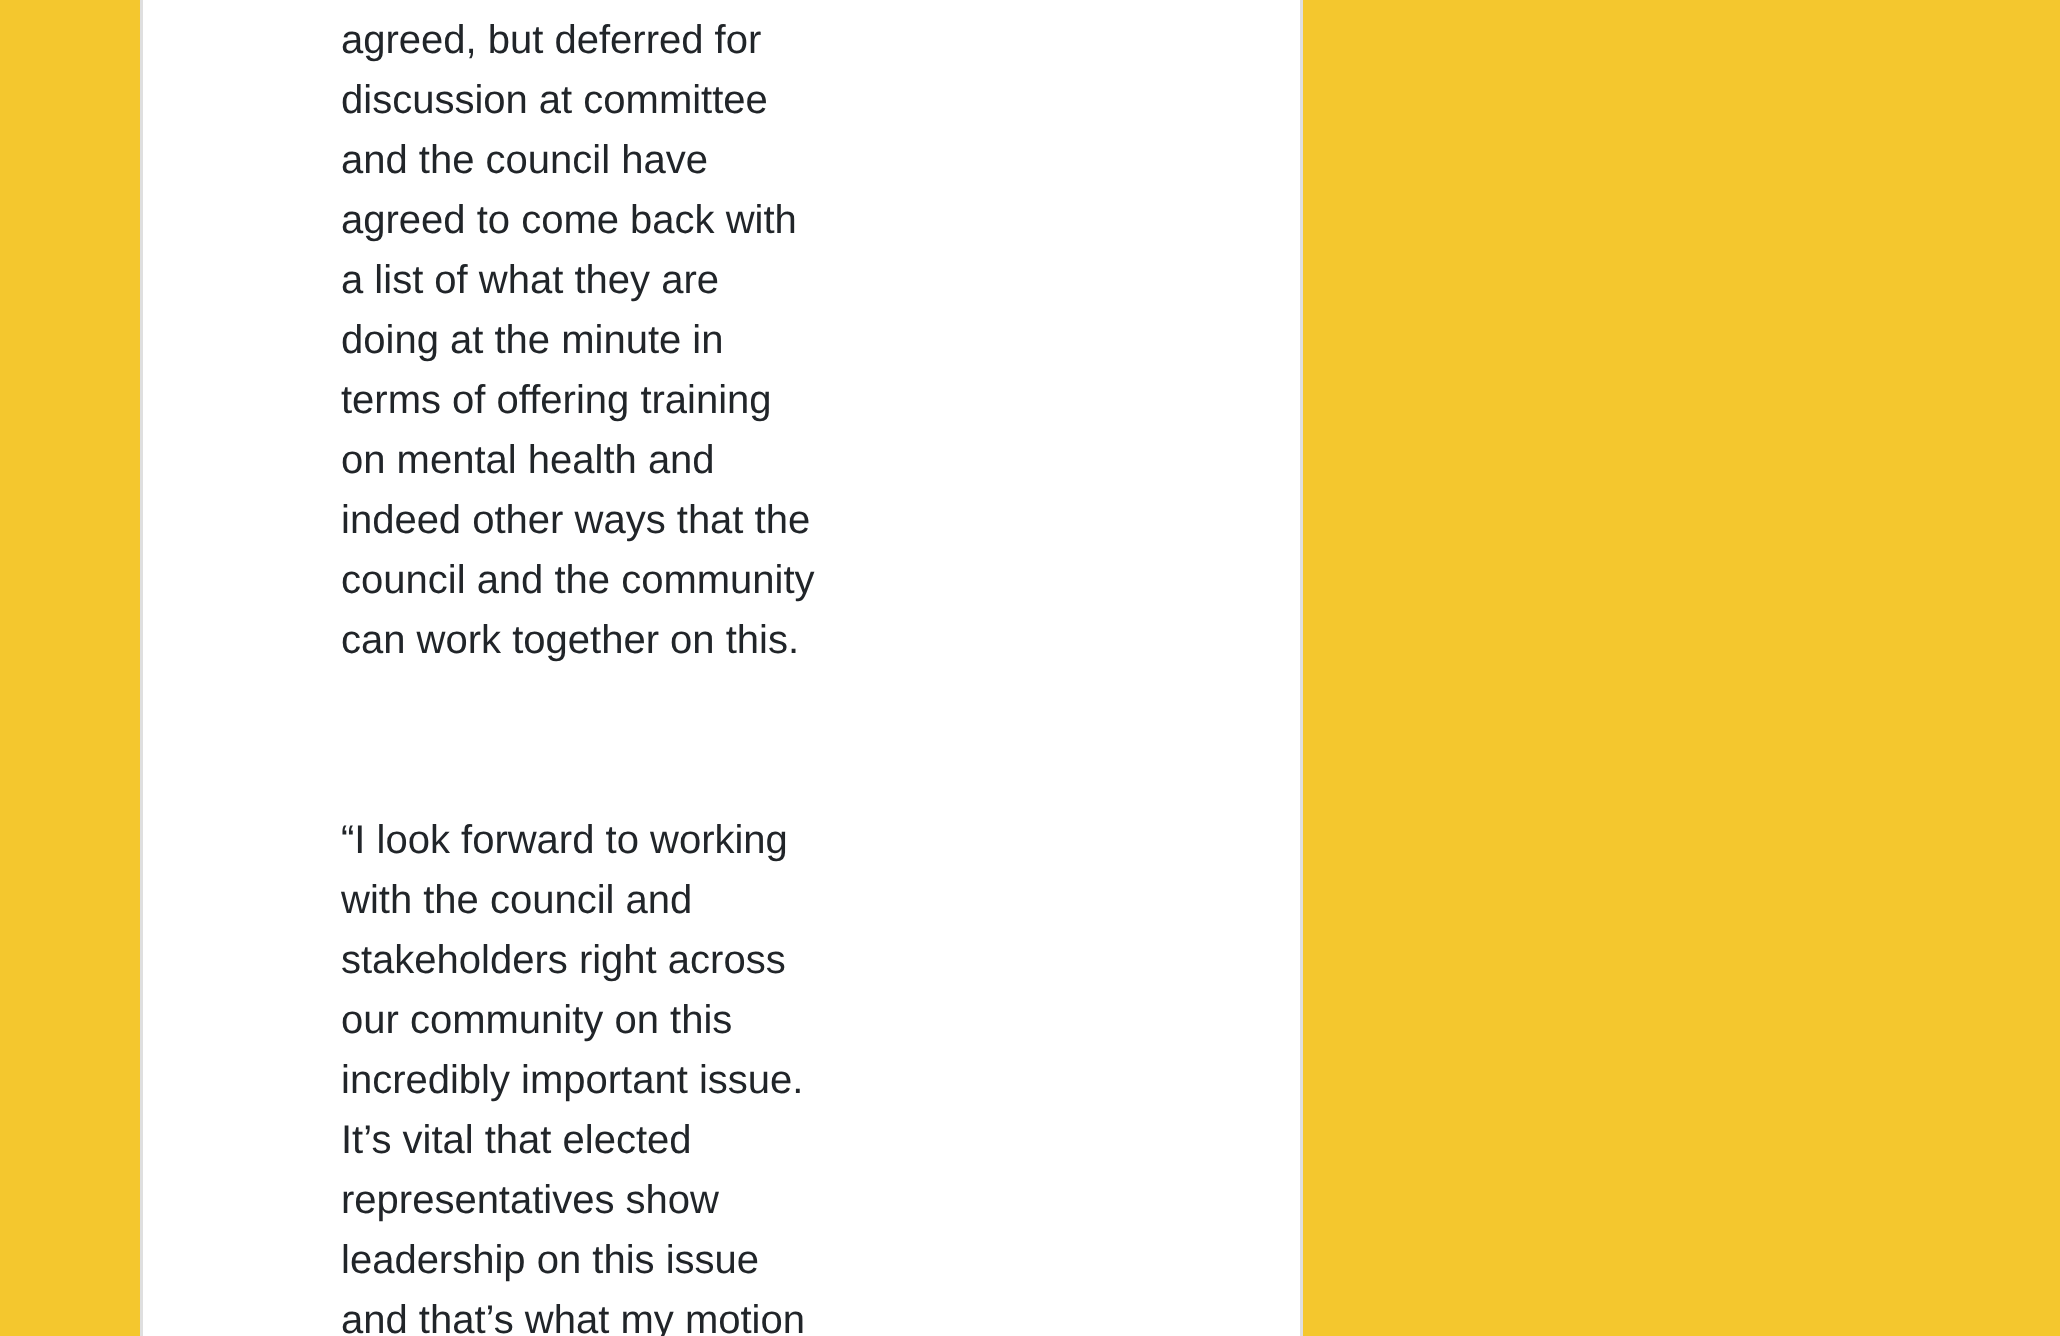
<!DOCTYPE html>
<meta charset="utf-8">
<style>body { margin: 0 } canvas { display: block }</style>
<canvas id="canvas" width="2060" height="1336"></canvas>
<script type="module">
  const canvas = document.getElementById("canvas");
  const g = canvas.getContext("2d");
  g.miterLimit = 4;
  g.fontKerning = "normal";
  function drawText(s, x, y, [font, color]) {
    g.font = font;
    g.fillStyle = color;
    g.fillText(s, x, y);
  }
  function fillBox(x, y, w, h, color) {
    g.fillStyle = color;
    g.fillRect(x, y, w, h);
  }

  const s1 = ["40px Liberation Sans", "#212529"];

  fillBox(0, 0, 2060, 1336, "#F4C72E");
  g.fillStyle = "#FFFFFF";
  g.beginPath();
  g.rect(141.5, -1.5, 1160, 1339);
  g.fill();
  g.strokeStyle = "#DFDFDF";
  g.lineWidth = 3;
  g.stroke();
  drawText("agreed, but deferred for", 341, 53, s1);
  drawText("discussion at committee", 341, 113, s1);
  drawText("and the council have", 341, 173, s1);
  drawText("agreed to come back with", 341, 233, s1);
  drawText("a list of what they are", 341, 293, s1);
  drawText("doing at the minute in", 341, 353, s1);
  drawText("terms of offering training", 341, 413, s1);
  drawText("on mental health and", 341, 473, s1);
  drawText("indeed other ways that the", 341, 533, s1);
  drawText("council and the community", 341, 593, s1);
  drawText("can work together on this.", 341, 653, s1);
  drawText("“I look forward to working", 341, 853, s1);
  drawText("with the council and", 341, 913, s1);
  drawText("stakeholders right across", 341, 973, s1);
  drawText("our community on this", 341, 1033, s1);
  drawText("incredibly important issue.", 341, 1093, s1);
  drawText("It’s vital that elected", 341, 1153, s1);
  drawText("representatives show", 341, 1213, s1);
  drawText("leadership on this issue", 341, 1273, s1);
  drawText("and that’s what my motion", 341, 1333, s1);
</script>
